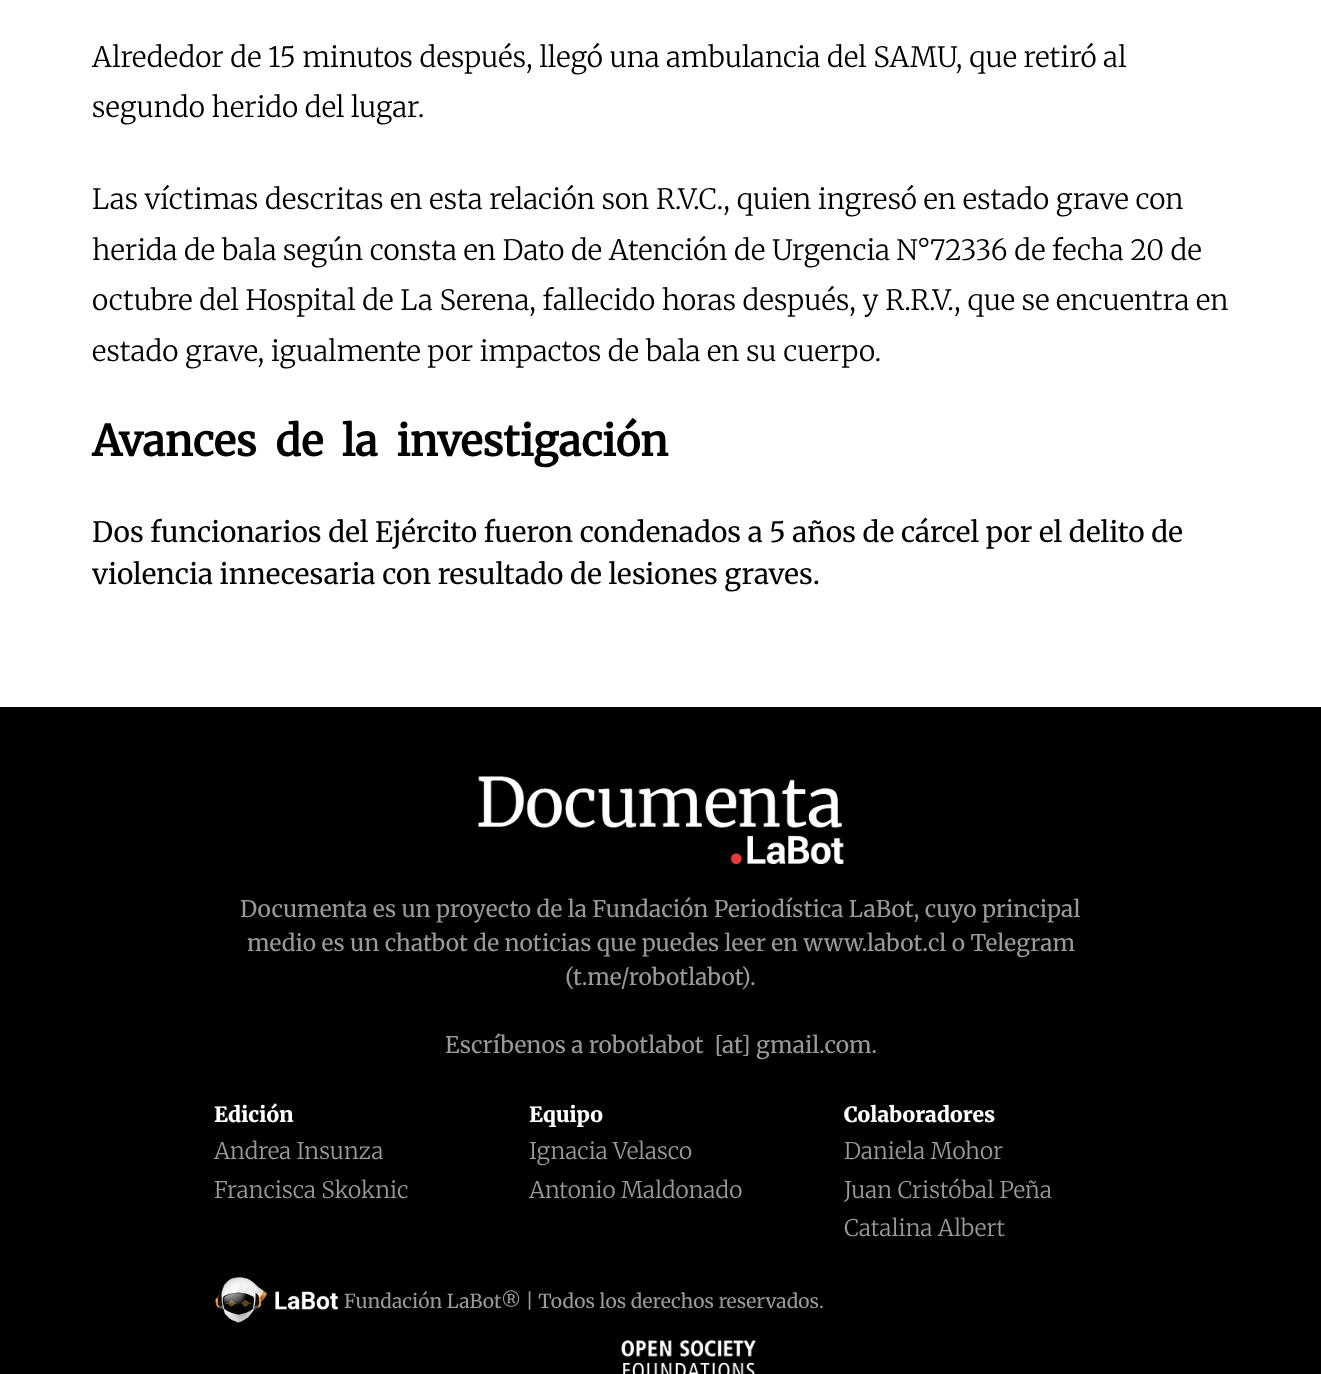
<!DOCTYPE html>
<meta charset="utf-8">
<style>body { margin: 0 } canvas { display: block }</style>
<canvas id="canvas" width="1321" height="1374"></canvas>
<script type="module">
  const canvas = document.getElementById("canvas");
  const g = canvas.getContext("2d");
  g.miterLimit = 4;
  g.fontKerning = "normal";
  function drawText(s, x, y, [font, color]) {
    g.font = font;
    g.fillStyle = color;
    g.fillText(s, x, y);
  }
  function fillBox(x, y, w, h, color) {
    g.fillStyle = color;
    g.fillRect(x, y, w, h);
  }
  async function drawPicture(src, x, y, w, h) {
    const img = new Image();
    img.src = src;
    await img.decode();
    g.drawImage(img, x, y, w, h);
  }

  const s1 = ["300 28px Merriweather", "#000000"];
  const s2 = ["bold 42px Merriweather", "#000000"];
  const s3 = ["28px Merriweather", "#000000"];
  const s4 = ["22.75px Merriweather", "#999999"];
  const s5 = ["900 21px Merriweather", "#FFFFFF"];
  const s6 = ["300 22.75px Merriweather", "#999999"];
  const s7 = ["19.25px Merriweather", "#999999"];

  fillBox(0, 0, 1321, 1374, "#FFFFFF");
  drawText("Alrededor de 15 minutos después, llegó una ambulancia del SAMU, que retiró al", 92, 67, s1);
  drawText("segundo herido del lugar.", 92, 117, s1);
  drawText("Las víctimas descritas en esta relación son R.V.C., quien ingresó en estado grave con", 92, 209, s1);
  drawText("herida de bala según consta en Dato de Atención de Urgencia N°72336 de fecha 20 de", 92, 260, s1);
  drawText("octubre del Hospital de La Serena, fallecido horas después, y R.R.V., que se encuentra en", 92, 310, s1);
  drawText("estado grave, igualmente por impactos de bala en su cuerpo.", 92, 361, s1);
  g.wordSpacing = "9px";
  drawText("Avances de la investigación", 92, 456, s2);
  g.wordSpacing = "0px";
  drawText("Dos funcionarios del Ejército fueron condenados a 5 años de cárcel por el delito de", 92, 542, s3);
  drawText("violencia innecesaria con resultado de lesiones graves.", 92, 584, s3);
  fillBox(0, 707, 1321, 667, "#000000");
  await drawPicture("pic1.png", 477, 776, 367, 88);
  drawText("Documenta es un proyecto de la Fundación Periodística LaBot, cuyo principal", 240, 917, s4);
  drawText("medio es un chatbot de noticias que puedes leer en www.labot.cl o Telegram", 247, 951, s4);
  drawText("(", 565, 985, s4);
  drawText("t.me/robotlabot", 573, 985, s4);
  drawText(").", 741, 985, s4);
  drawText("Escríbenos a robotlabot  [at] gmail.com.", 445, 1053, s4);
  drawText("Edición", 214, 1122, s5);
  drawText("Andrea Insunza", 214, 1159, s6);
  drawText("Francisca Skoknic", 214, 1198, s6);
  drawText("Equipo", 529, 1122, s5);
  drawText("Ignacia Velasco", 529, 1159, s6);
  drawText("Antonio Maldonado", 529, 1198, s6);
  drawText("Colaboradores", 844, 1122, s5);
  drawText("Daniela Mohor", 844, 1159, s6);
  drawText("Juan Cristóbal Peña", 844, 1198, s6);
  drawText("Catalina Albert", 844, 1236, s6);
  await drawPicture("pic2.png", 215, 1277, 123, 46);
  drawText("Fundación LaBot® | Todos los derechos reservados.", 344, 1308, s7);
  await drawPicture("pic3.png", 621, 1340, 135, 34);
</script>
